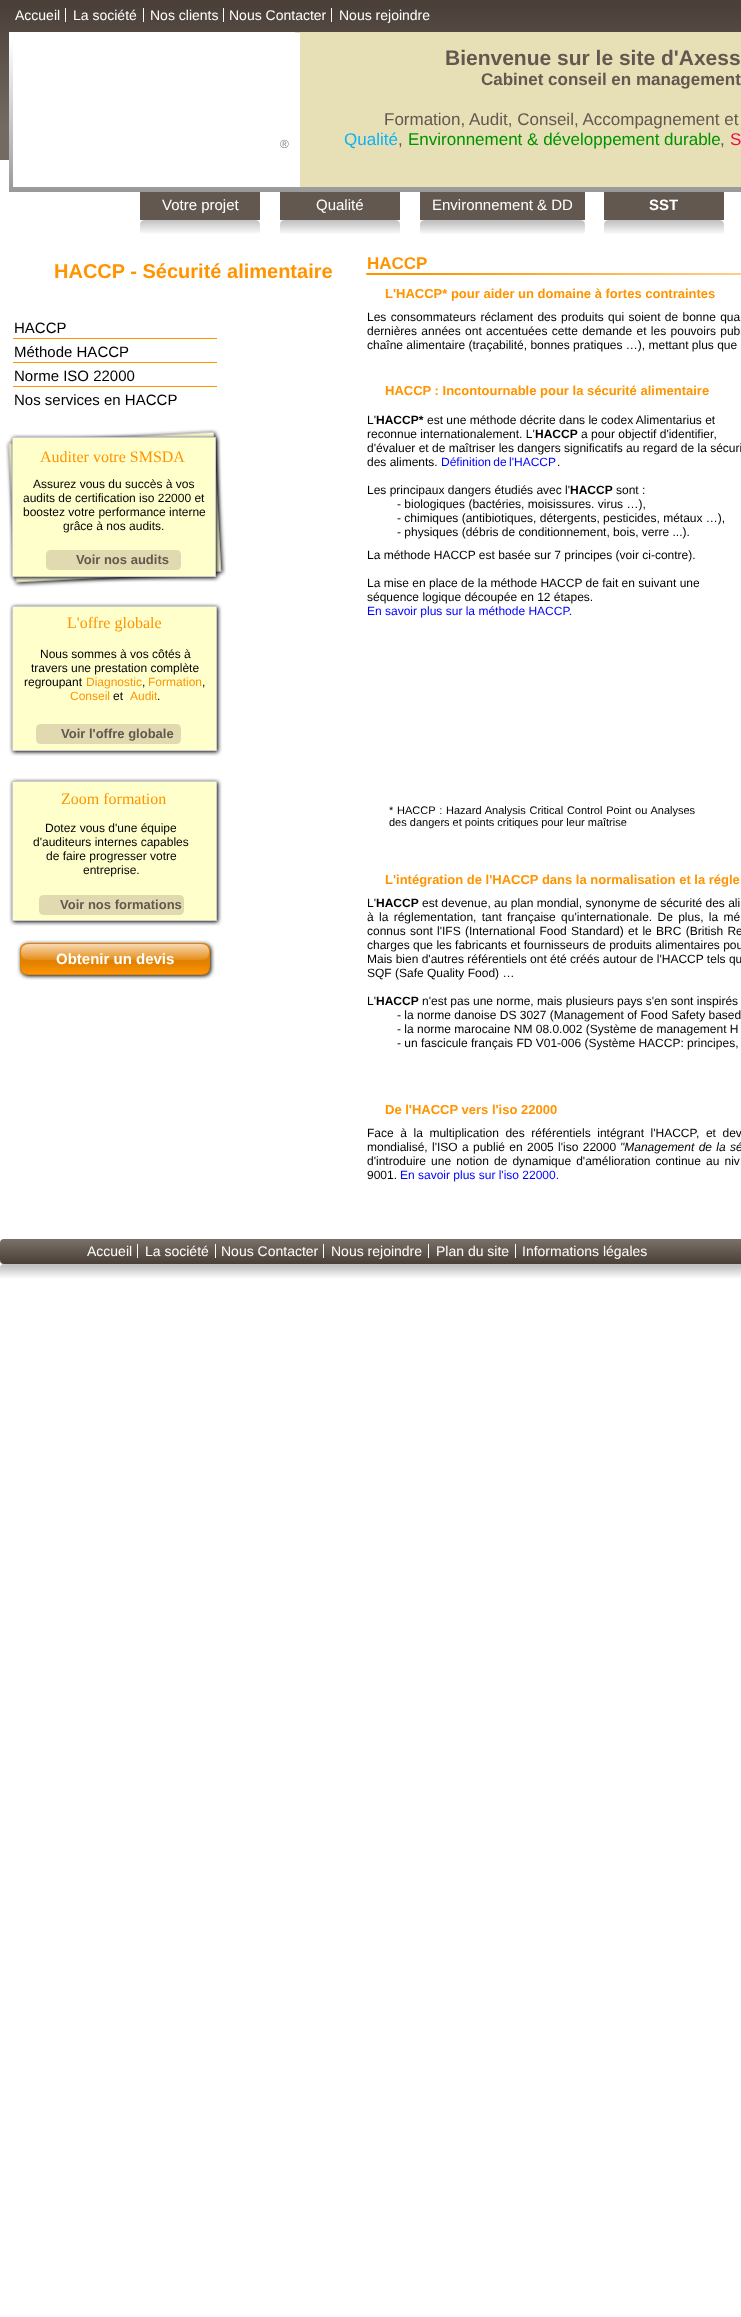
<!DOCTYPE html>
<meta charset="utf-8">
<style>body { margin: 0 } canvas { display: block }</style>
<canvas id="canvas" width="741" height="2317"></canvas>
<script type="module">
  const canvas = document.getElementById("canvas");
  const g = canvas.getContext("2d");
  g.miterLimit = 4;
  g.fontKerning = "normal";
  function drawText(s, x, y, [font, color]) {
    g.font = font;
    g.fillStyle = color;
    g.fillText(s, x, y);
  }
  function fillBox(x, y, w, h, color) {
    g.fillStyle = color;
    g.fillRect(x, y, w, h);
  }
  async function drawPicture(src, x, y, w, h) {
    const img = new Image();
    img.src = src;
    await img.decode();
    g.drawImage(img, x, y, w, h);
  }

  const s1 = ["14px Liberation Sans", "#FFFFFF"];
  const s2 = ["12px Liberation Sans", "#918276"];
  const s3 = ["bold 21px Liberation Sans", "#625850"];
  const s4 = ["bold 17px Liberation Sans", "#625850"];
  const s5 = ["17px Liberation Sans", "#625850"];
  const s6 = ["17px Liberation Sans", "#11B2F0"];
  const s7 = ["17px Liberation Sans", "#009300"];
  const s8 = ["17px Liberation Sans", "#F3074E"];
  const s9 = ["15px Liberation Sans", "#FFFFFF"];
  const s10 = ["bold 15px Liberation Sans", "#FFFFFF"];
  const s11 = ["bold 20px Liberation Sans", "#FF9400"];
  const s12 = ["bold 17px Liberation Sans", "#FF9400"];
  const s13 = ["15px Liberation Sans", "#000000"];
  const s14 = ["bold 13px Liberation Sans", "#FF9400"];
  const s15 = ["12px Liberation Sans", "#000000"];
  const s16 = ["bold 12px Liberation Sans", "#000000"];
  const s17 = ["12px Liberation Sans", "#0000FF"];
  const s18 = ["16px Liberation Serif", "#FF9400"];
  const s19 = ["bold 13px Liberation Sans", "#625850"];
  const s20 = ["12px Liberation Sans", "#FF9400"];
  const s21 = ["11px Liberation Sans", "#000000"];
  const s22 = ["italic 12px Liberation Sans", "#000000"];

  fillBox(0, 0, 741, 2317, "#FFFFFF");
  await drawPicture("pic1.png", 0, 0, 741, 160);
  await drawPicture("pic2.png", 65, 8, 267, 14);
  drawText("Accueil", 15, 20, s1);
  drawText("La société", 73, 20, s1);
  drawText("Nos clients", 150, 20, s1);
  drawText("Nous Contacter", 229, 20, s1);
  drawText("Nous rejoindre", 339, 20, s1);
  await drawPicture("pic3.png", 9, 32, 732, 160);
  fillBox(295, 32, 446, 155, "#E7DFB5");
  fillBox(13, 33, 287, 154, "#FFFFFF");
  drawText("®", 280, 148, s2);
  drawText("Bienvenue sur le site d'Axess", 445, 65, s3);
  drawText("Cabinet conseil en management", 481, 85, s4);
  drawText("Formation, Audit, Conseil, Accompagnement et", 384, 125, s5);
  drawText("Qualité", 344, 145, s6);
  drawText(",", 398, 145, s5);
  drawText("Environnement & développement durable", 408, 145, s7);
  drawText(",", 720, 145, s5);
  drawText("S", 730, 145, s8);
  fillBox(140, 192, 120, 28, "#625850");
  drawText("Votre projet", 162, 210, s9);
  fillBox(280, 192, 120, 28, "#625850");
  drawText("Qualité", 316, 210, s9);
  fillBox(420, 192, 165, 28, "#625850");
  drawText("Environnement & DD", 432, 210, s9);
  fillBox(604, 192, 120, 28, "#625850");
  drawText("SST", 649, 210, s10);
  await drawPicture("pic4.png", 140, 220, 120, 14);
  await drawPicture("pic5.png", 280, 220, 120, 14);
  await drawPicture("pic6.png", 420, 220, 165, 14);
  await drawPicture("pic5.png", 604, 220, 120, 14);
  drawText("HACCP - Sécurité alimentaire", 54, 278, s11);
  drawText("HACCP", 367, 269, s12);
  await drawPicture("pic7.png", 366, 273, 375, 2);
  drawText("HACCP", 14, 333, s13);
  await drawPicture("pic8.png", 13, 338, 204, 49);
  drawText("Méthode HACCP", 14, 357, s13);
  drawText("Norme ISO 22000", 14, 381, s13);
  drawText("Nos services en HACCP", 14, 405, s13);
  drawText("L'HACCP* pour aider un domaine à fortes contraintes", 385, 298, s14);
  g.wordSpacing = "1px";
  drawText("Les consommateurs réclament des produits qui soient de bonne qua", 367, 321, s15);
  drawText("dernières années ont accentuées cette demande et les pouvoirs pub", 367, 335, s15);
  g.wordSpacing = "0px";
  drawText("chaîne alimentaire (traçabilité, bonnes pratiques …), mettant plus que", 367, 349, s15);
  await drawPicture("pic9.png", 5, 429, 221, 158);
  drawText("HACCP : Incontournable pour la sécurité alimentaire", 385, 395, s14);
  drawText("L'", 367, 424, s15);
  drawText("HACCP*", 376, 424, s16);
  drawText("est une méthode décrite dans le codex Alimentarius et", 427, 424, s15);
  drawText("reconnue internationalement. L'", 367, 438, s15);
  drawText("HACCP", 535, 438, s16);
  drawText("a pour objectif d'identifier,", 581, 438, s15);
  drawText("d'évaluer et de maîtriser les dangers significatifs au regard de la sécuri", 367, 452, s15);
  drawText("des aliments.", 367, 466, s15);
  g.wordSpacing = "-1px";
  drawText("Définition de l'HACCP", 441, 466, s17);
  g.wordSpacing = "0px";
  drawText(".", 557, 466, s15);
  drawText("Les principaux dangers étudiés avec l'", 367, 494, s15);
  drawText("HACCP", 570, 494, s16);
  drawText("sont :", 616, 494, s15);
  drawText("- biologiques (bactéries, moisissures. virus …),", 397, 508, s15);
  drawText("- chimiques (antibiotiques, détergents, pesticides, métaux …),", 397, 522, s15);
  drawText("- physiques (débris de conditionnement, bois, verre ...).", 397, 536, s15);
  drawText("La méthode HACCP est basée sur 7 principes (voir ci-contre).", 367, 559, s15);
  drawText("La mise en place de la méthode HACCP de fait en suivant une", 367, 587, s15);
  drawText("séquence logique découpée en 12 étapes.", 367, 601, s15);
  drawText("En savoir plus sur la méthode HACCP.", 367, 615, s17);
  await drawPicture("pic10.png", 9, 434, 212, 148);
  drawText("Auditer votre SMSDA", 40, 462, s18);
  drawText("Assurez vous du succès à vos", 33, 488, s15);
  drawText("audits de certification iso 22000 et", 23, 502, s15);
  drawText("boostez votre performance interne", 23, 516, s15);
  drawText("grâce à nos audits.", 63, 530, s15);
  await drawPicture("pic11.png", 46, 550, 135, 20);
  drawText("Voir nos audits", 76, 564, s19);
  await drawPicture("pic12.png", 9, 603, 213, 153);
  drawText("L'offre globale", 67, 628, s18);
  drawText("Nous sommes à vos côtés à", 40, 658, s15);
  drawText("travers une prestation complète", 31, 672, s15);
  drawText("regroupant", 24, 686, s15);
  drawText("Diagnostic", 86, 686, s20);
  drawText(",", 142, 686, s15);
  drawText("Formation", 148, 686, s20);
  drawText(",", 202, 686, s15);
  drawText("Conseil", 70, 700, s20);
  drawText("et", 113, 700, s15);
  drawText("Audit", 130, 700, s20);
  drawText(".", 157, 700, s15);
  await drawPicture("pic13.png", 36, 724, 145, 20);
  drawText("Voir l'offre globale", 61, 738, s19);
  await drawPicture("pic14.png", 9, 778, 213, 148);
  drawText("Zoom formation", 61, 804, s18);
  g.wordSpacing = "0.75px";
  drawText("* HACCP : Hazard Analysis Critical Control Point ou Analyses", 389, 814, s21);
  g.wordSpacing = "0px";
  drawText("des dangers et points critiques pour leur maîtrise", 389, 826, s21);
  drawText("Dotez vous d'une équipe", 45, 832, s15);
  drawText("d'auditeurs internes capables", 33, 846, s15);
  drawText("de faire progresser votre", 46, 860, s15);
  drawText("entreprise.", 83, 874, s15);
  await drawPicture("pic13.png", 39, 895, 145, 20);
  drawText("Voir nos formations", 60, 909, s19);
  drawText("L'intégration de l'HACCP dans la normalisation et la régle", 385, 884, s14);
  drawText("L'", 367, 907, s15);
  drawText("HACCP", 376, 907, s16);
  drawText("est devenue, au plan mondial, synonyme de sécurité des ali", 422, 907, s15);
  g.wordSpacing = "2px";
  drawText("à la réglementation, tant française qu'internationale. De plus, la mé", 367, 921, s15);
  g.wordSpacing = "1px";
  drawText("connus sont l'IFS (International Food Standard) et le BRC (British Re", 367, 935, s15);
  g.wordSpacing = "0px";
  drawText("charges que les fabricants et fournisseurs de produits alimentaires pou", 367, 949, s15);
  drawText("Mais bien d'autres référentiels ont été créés autour de l'HACCP tels qu", 367, 963, s15);
  drawText("SQF (Safe Quality Food) …", 367, 977, s15);
  drawText("L'", 367, 1005, s15);
  drawText("HACCP", 376, 1005, s16);
  drawText("n'est pas une norme, mais plusieurs pays s'en sont inspirés", 422, 1005, s15);
  drawText("- la norme danoise DS 3027 (Management of Food Safety based", 397, 1019, s15);
  drawText("- la norme marocaine NM 08.0.002 (Système de management H", 397, 1033, s15);
  drawText("- un fascicule français FD V01-006 (Système HACCP: principes,", 397, 1047, s15);
  await drawPicture("pic15.png", 17, 940, 198, 40);
  drawText("Obtenir un devis", 56, 964, s10);
  drawText("De l'HACCP vers l'iso 22000", 385, 1114, s14);
  g.wordSpacing = "3.25px";
  drawText("Face à la multiplication des référentiels intégrant l'HACCP, et dev", 367, 1137, s15);
  g.wordSpacing = "1px";
  drawText("mondialisé, l'ISO a publié en 2005 l'iso 22000", 367, 1151, s15);
  drawText("\"Management de la sé", 620, 1151, s22);
  g.wordSpacing = "1.75px";
  drawText("d'introduire une notion de dynamique d'amélioration continue au niv", 367, 1165, s15);
  g.wordSpacing = "0px";
  drawText("9001.", 367, 1179, s15);
  drawText("En savoir plus sur l'iso 22000.", 400, 1179, s17);
  await drawPicture("pic16.png", 0, 1239, 741, 25);
  await drawPicture("pic17.png", 137, 1244, 379, 14);
  drawText("Accueil", 87, 1256, s1);
  drawText("La société", 145, 1256, s1);
  drawText("Nous Contacter", 221, 1256, s1);
  drawText("Nous rejoindre", 331, 1256, s1);
  drawText("Plan du site", 436, 1256, s1);
  drawText("Informations légales", 522, 1256, s1);
  await drawPicture("pic18.png", 0, 1264, 741, 14);
</script>
